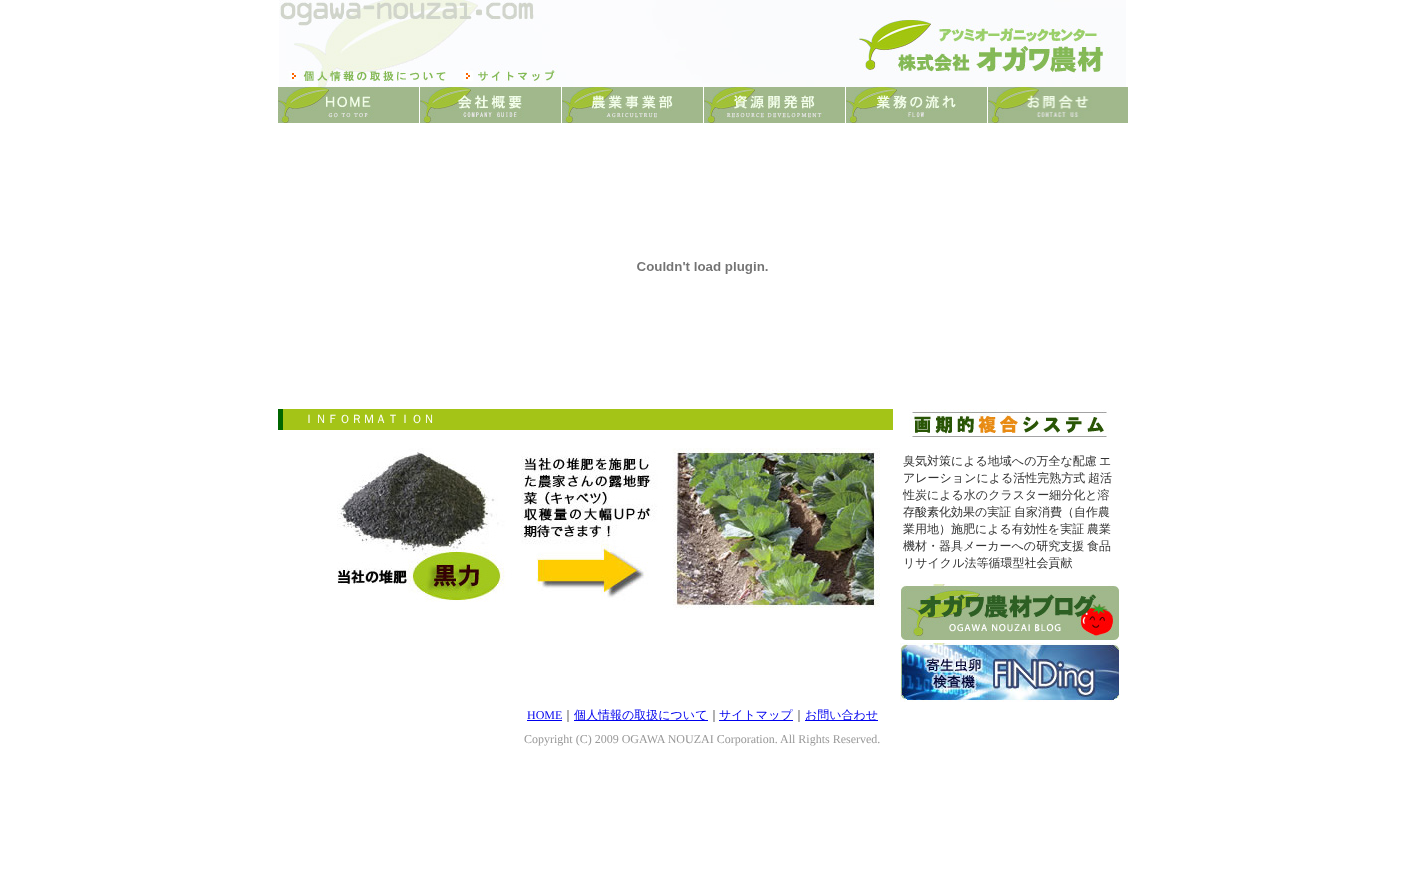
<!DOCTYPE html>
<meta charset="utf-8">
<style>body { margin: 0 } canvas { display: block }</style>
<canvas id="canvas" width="1405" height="889"></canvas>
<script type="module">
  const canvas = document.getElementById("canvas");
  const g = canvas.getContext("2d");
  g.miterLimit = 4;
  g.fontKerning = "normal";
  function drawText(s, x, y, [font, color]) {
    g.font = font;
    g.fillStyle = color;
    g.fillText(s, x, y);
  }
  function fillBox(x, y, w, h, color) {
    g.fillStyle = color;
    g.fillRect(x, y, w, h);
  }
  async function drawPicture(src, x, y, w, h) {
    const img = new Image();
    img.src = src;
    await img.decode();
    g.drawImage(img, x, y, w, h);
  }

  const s1 = ["500 12px WenQuanYi Zen Hei", "#FFFFFF"];
  const s2 = ["500 12px WenQuanYi Zen Hei", "#333333"];
  const s3 = ["12px Liberation Serif", "#0000EE"];
  const s4 = ["500 12px WenQuanYi Zen Hei", "#0000EE"];
  const s5 = ["12px Liberation Serif", "#999999"];

  fillBox(0, 0, 1405, 889, "#FFFFFF");
  await drawPicture("pic1.png", 279, 0, 847, 87);
  await drawPicture("pic2.png", 278, 87, 141, 36);
  await drawPicture("pic3.png", 420, 87, 141, 36);
  await drawPicture("pic4.png", 562, 87, 141, 36);
  await drawPicture("pic5.png", 704, 87, 141, 36);
  await drawPicture("pic6.png", 846, 87, 141, 36);
  await drawPicture("pic7.png", 988, 87, 140, 36);
  await drawPicture("pic8.png", 637, 262, 131, 12);
  fillBox(283, 409, 610, 21, "#A4C417");
  fillBox(278, 409, 5, 21, "#006600");
  drawText("ＩＮＦＯＲＭＡＴＩＯＮ", 303, 423, s1);
  await drawPicture("pic9.png", 337, 448, 543, 162);
  await drawPicture("pic10.png", 909, 409, 200, 28);
  drawText("臭気対策による地域への万全な配慮", 903, 465, s2);
  drawText("エ", 1099, 465, s2);
  drawText("アレーションによる活性完熟方式", 903, 482, s2);
  drawText("超活", 1088, 482, s2);
  drawText("性炭による水のクラスター細分化と溶", 903, 499, s2);
  g.wordSpacing = "-1px";
  drawText("存酸素化効果の実証 自家消費（自作農", 903, 516, s2);
  g.wordSpacing = "0px";
  drawText("業用地）施肥による有効性を実証", 903, 533, s2);
  drawText("農業", 1087, 533, s2);
  drawText("機材・器具メーカーへの研究支援", 903, 550, s2);
  drawText("食品", 1087, 550, s2);
  drawText("リサイクル法等循環型社会貢献", 903, 567, s2);
  await drawPicture("pic11.png", 900, 584, 220, 56);
  await drawPicture("pic12.png", 900, 643, 220, 59);
  drawText("HOME", 527, 719, s3);
  fillBox(527, 720, 35, 1, "#0000EE");
  drawText("｜", 562, 719, s2);
  fillBox(574, 720, 134, 1, "#0000EE");
  drawText("個人情報の取扱について", 574, 719, s4);
  drawText("｜", 708, 719, s2);
  fillBox(719, 720, 74, 1, "#0000EE");
  drawText("サイトマップ", 719, 719, s4);
  drawText("｜", 793, 719, s2);
  fillBox(805, 720, 73, 1, "#0000EE");
  drawText("お問い合わせ", 805, 719, s4);
  drawText("Copyright (C) 2009 OGAWA NOUZAI Corporation. All Rights Reserved.", 524, 743, s5);
</script>
